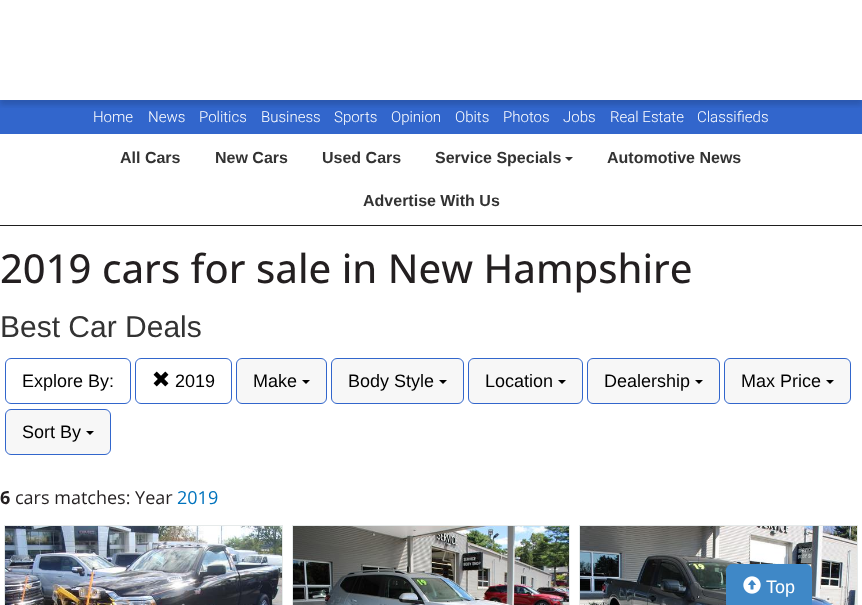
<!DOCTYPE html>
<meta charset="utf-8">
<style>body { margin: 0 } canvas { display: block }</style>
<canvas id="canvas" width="862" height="605"></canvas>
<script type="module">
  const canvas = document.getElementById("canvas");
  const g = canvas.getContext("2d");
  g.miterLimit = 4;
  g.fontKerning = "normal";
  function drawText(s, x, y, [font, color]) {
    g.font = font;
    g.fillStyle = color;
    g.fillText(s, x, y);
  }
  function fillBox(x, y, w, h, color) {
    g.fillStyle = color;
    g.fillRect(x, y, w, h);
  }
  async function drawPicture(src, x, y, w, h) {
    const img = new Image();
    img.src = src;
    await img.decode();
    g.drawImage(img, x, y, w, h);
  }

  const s1 = ["300 15px Roboto", "#FFFFFF"];
  const s2 = ["bold 16px Liberation Sans", "#333333"];
  const s3 = ["500 40px Open Sans", "#231F20"];
  const s4 = ["30px Liberation Sans", "#333333"];
  const s5 = ["18px Liberation Sans", "#000000"];
  const s6 = ["bold 18px Open Sans", "#231F20"];
  const s7 = ["18px Open Sans", "#231F20"];
  const s8 = ["18px Open Sans", "#0073BD"];
  const s9 = ["18px Liberation Sans", "#FFFFFF"];

  fillBox(0, 0, 862, 605, "#FFFFFF");
  fillBox(0, 100, 862, 34, "#3266CC");
  g.save();
  g.beginPath();
  g.rect(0, 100, 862, 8);
  g.clip();
  g.fillStyle = "rgba(0, 0, 0, 0.14)";
  g.filter = "blur(2.5px)";
  g.beginPath();
  g.rect(0, 5, 862, 100);
  g.fill();
  g.filter = "none";
  g.restore();
  drawText("Home", 93, 122, s1);
  drawText("News", 148, 122, s1);
  drawText("Politics", 199, 122, s1);
  drawText("Business", 261, 122, s1);
  drawText("Sports", 334, 122, s1);
  drawText("Opinion", 391, 122, s1);
  drawText("Obits", 455, 122, s1);
  drawText("Photos", 503, 122, s1);
  drawText("Jobs", 563, 122, s1);
  drawText("Real Estate", 610, 122, s1);
  drawText("Classifieds", 697, 122, s1);
  fillBox(0, 225, 862, 1, "#1E1E1E");
  drawText("All Cars", 120, 163, s2);
  drawText("New Cars", 215, 163, s2);
  drawText("Used Cars", 322, 163, s2);
  drawText("Service Specials", 435, 163, s2);
  g.beginPath();
  g.moveTo(565, 157);
  g.lineTo(573, 157);
  g.lineTo(569, 161);
  g.closePath();
  g.fill();
  drawText("Automotive News", 607, 163, s2);
  drawText("Advertise With Us", 363, 206, s2);
  drawText("2019 cars for sale in New Hampshire", 0, 283, s3);
  drawText("Best Car Deals", 0, 337, s4);
  g.beginPath();
  g.roundRect(5.5, 358.5, 125, 45, 5.5);
  g.strokeStyle = "#3266CC";
  g.stroke();
  drawText("Explore By:", 22, 387, s5);
  g.beginPath();
  g.roundRect(135.5, 358.5, 96, 45, 5.5);
  g.stroke();
  await drawPicture("pic1.png", 153, 371, 16, 16);
  drawText("2019", 175, 387, s5);
  g.fillStyle = "#F7F7F7";
  g.beginPath();
  g.roundRect(236.5, 358.5, 90, 45, 5.5);
  g.fill();
  g.stroke();
  drawText("Make", 253, 387, s5);
  g.beginPath();
  g.moveTo(302, 380);
  g.lineTo(310, 380);
  g.lineTo(306, 384);
  g.closePath();
  g.fill();
  g.fillStyle = "#F7F7F7";
  g.beginPath();
  g.roundRect(331.5, 358.5, 132, 45, 5.5);
  g.fill();
  g.stroke();
  drawText("Body Style", 348, 387, s5);
  g.beginPath();
  g.moveTo(439, 380);
  g.lineTo(447, 380);
  g.lineTo(443, 384);
  g.closePath();
  g.fill();
  g.fillStyle = "#F7F7F7";
  g.beginPath();
  g.roundRect(468.5, 358.5, 114, 45, 5.5);
  g.fill();
  g.stroke();
  drawText("Location", 485, 387, s5);
  g.beginPath();
  g.moveTo(558, 380);
  g.lineTo(566, 380);
  g.lineTo(562, 384);
  g.closePath();
  g.fill();
  g.fillStyle = "#F7F7F7";
  g.beginPath();
  g.roundRect(587.5, 358.5, 132, 45, 5.5);
  g.fill();
  g.stroke();
  drawText("Dealership", 604, 387, s5);
  g.beginPath();
  g.moveTo(695, 380);
  g.lineTo(703, 380);
  g.lineTo(699, 384);
  g.closePath();
  g.fill();
  g.fillStyle = "#F7F7F7";
  g.beginPath();
  g.roundRect(724.5, 358.5, 126, 45, 5.5);
  g.fill();
  g.stroke();
  drawText("Max Price", 741, 387, s5);
  g.beginPath();
  g.moveTo(826, 380);
  g.lineTo(834, 380);
  g.lineTo(830, 384);
  g.closePath();
  g.fill();
  g.fillStyle = "#F7F7F7";
  g.beginPath();
  g.roundRect(5.5, 409.5, 105, 45, 5.5);
  g.fill();
  g.stroke();
  drawText("Sort By", 22, 438, s5);
  g.beginPath();
  g.moveTo(86, 431);
  g.lineTo(94, 431);
  g.lineTo(90, 435);
  g.closePath();
  g.fill();
  drawText("6", 0, 504, s6);
  drawText("cars matches: Year", 15, 504, s7);
  drawText("2019", 177, 504, s8);
  g.strokeStyle = "#E6EAEA";
  g.strokeRect(4.5, 525.5, 278, 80);
  await drawPicture("pic2.png", 5, 526, 277, 79);
  g.strokeRect(292.5, 525.5, 277, 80);
  await drawPicture("pic3.png", 293, 526, 276, 79);
  g.strokeRect(579.5, 525.5, 278, 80);
  await drawPicture("pic4.png", 580, 526, 277, 79);
  g.fillStyle = "#3F88C7";
  g.beginPath();
  g.roundRect(726.5, 564.5, 85, 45, 5.5);
  g.fill();
  g.strokeStyle = "#3F88C7";
  g.stroke();
  await drawPicture("pic5.png", 743, 576, 18, 18);
  drawText("Top", 766, 593, s9);
</script>
